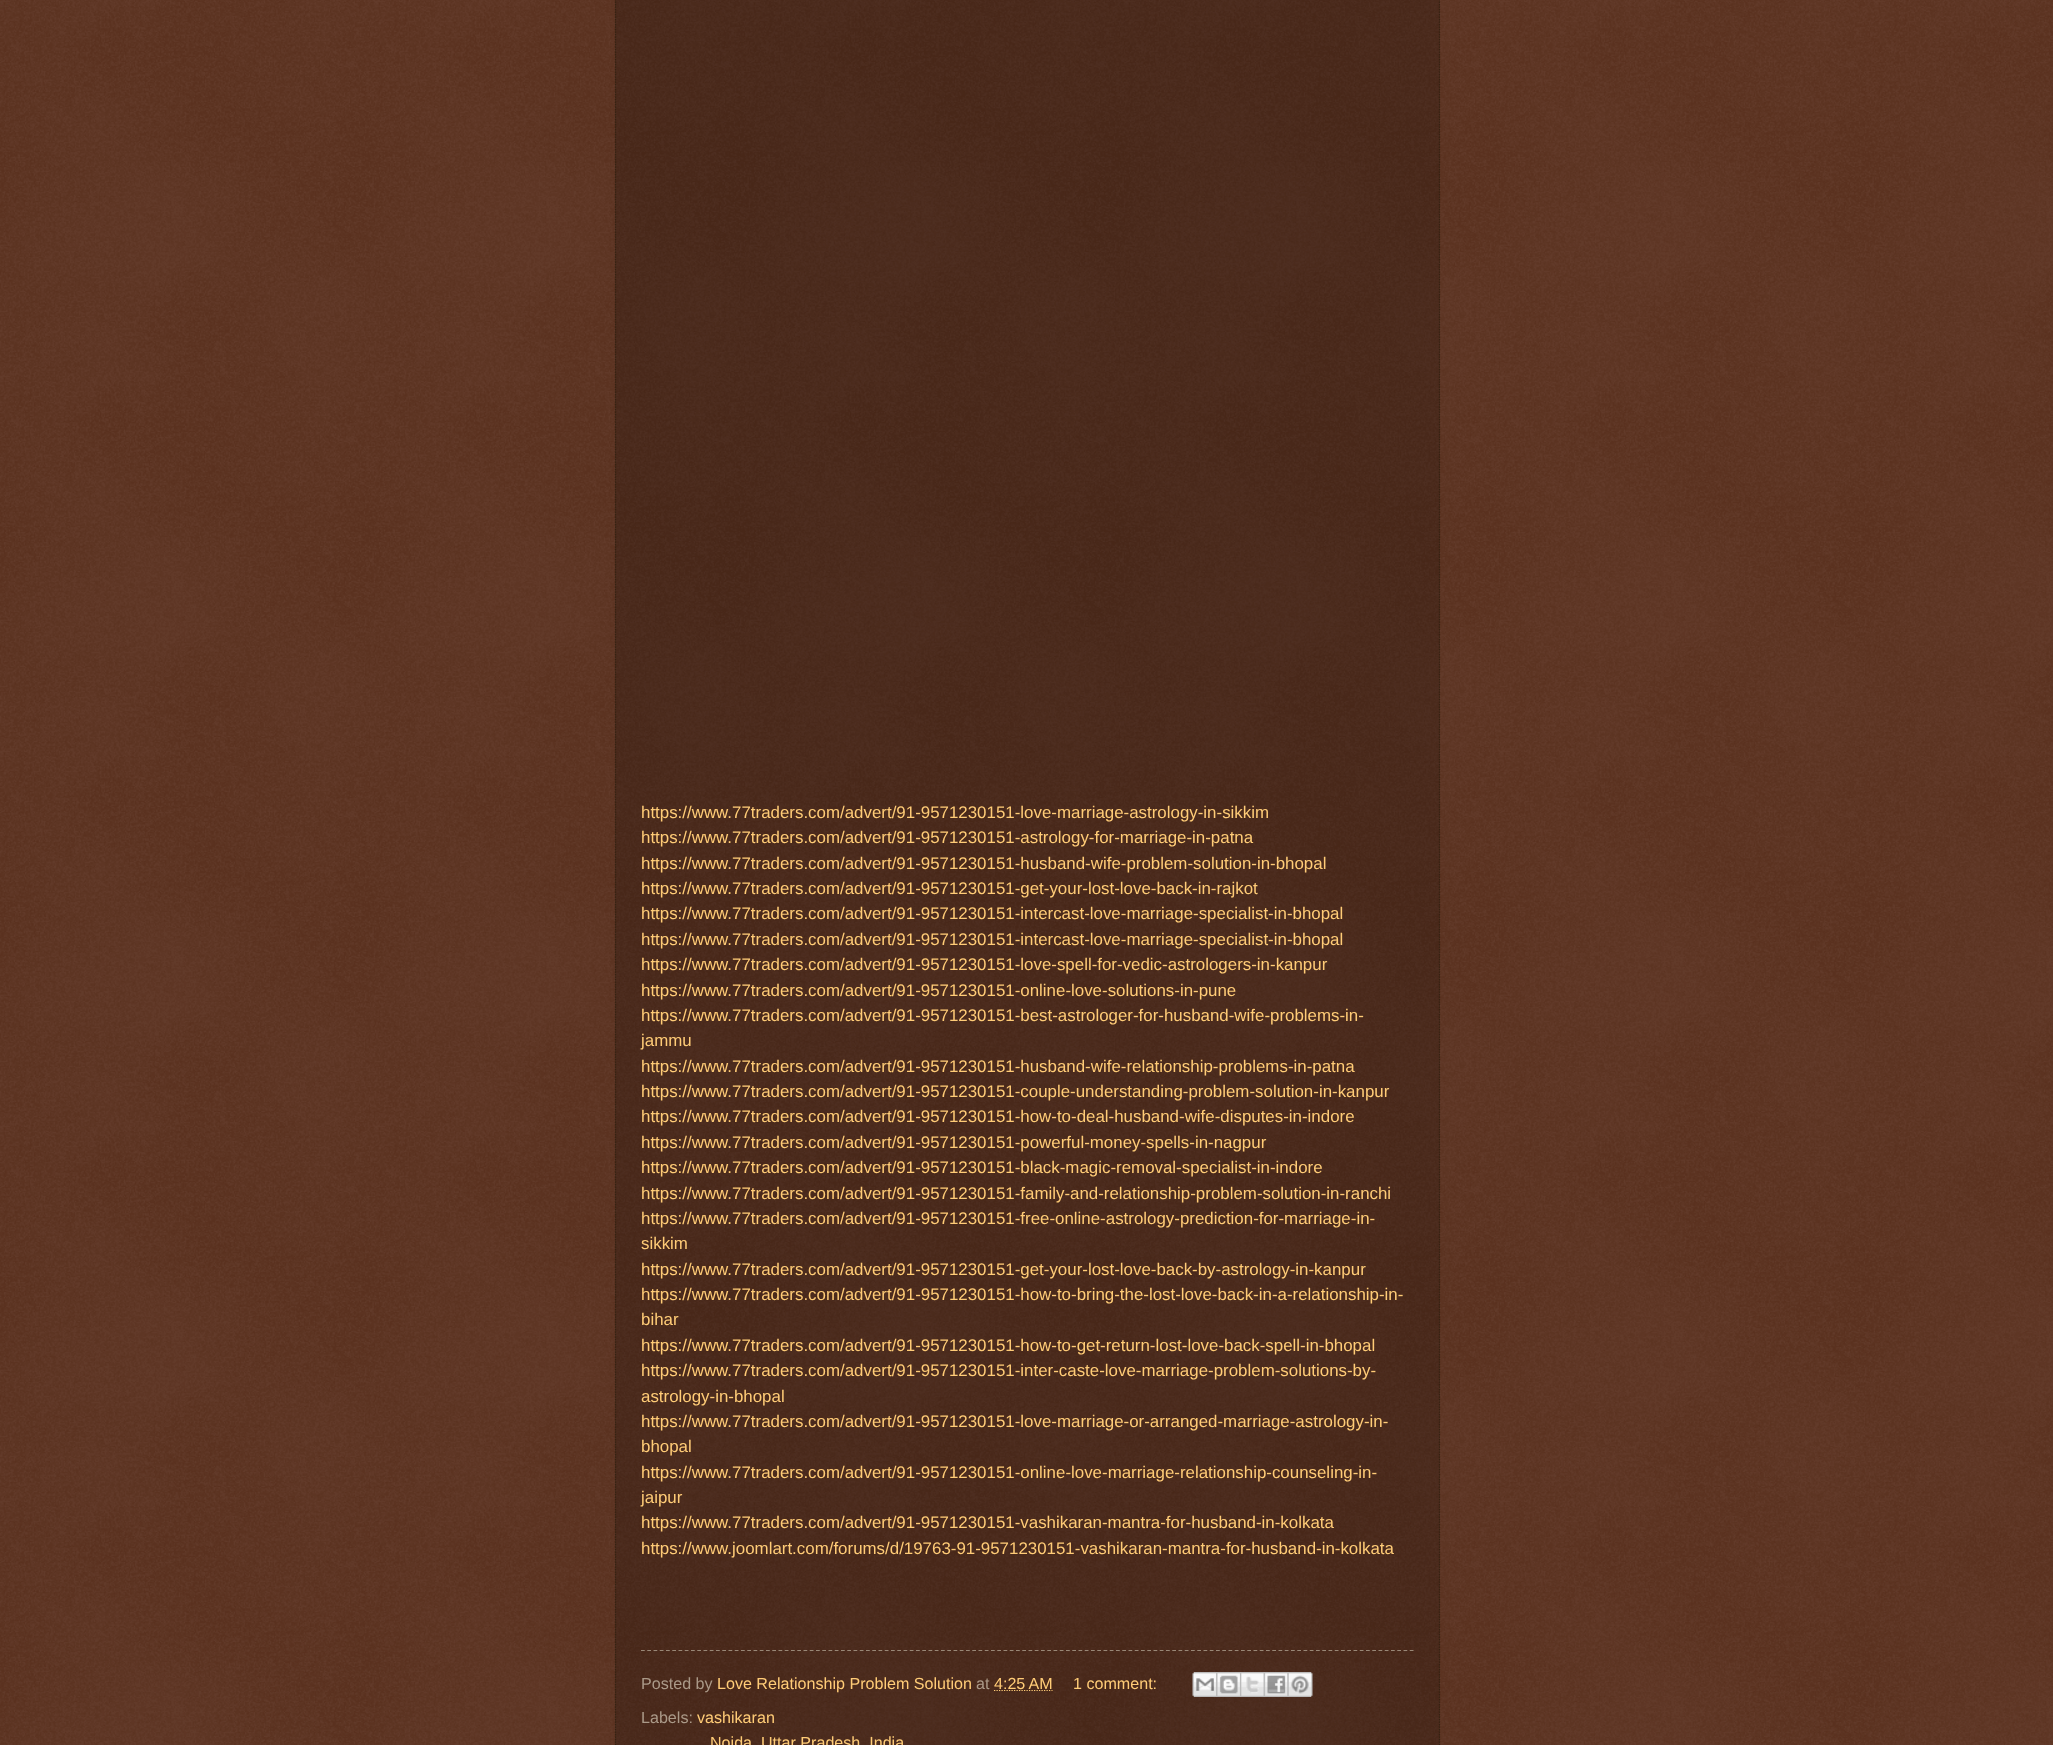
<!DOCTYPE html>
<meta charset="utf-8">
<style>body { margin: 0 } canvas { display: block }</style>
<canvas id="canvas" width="2053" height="1745"></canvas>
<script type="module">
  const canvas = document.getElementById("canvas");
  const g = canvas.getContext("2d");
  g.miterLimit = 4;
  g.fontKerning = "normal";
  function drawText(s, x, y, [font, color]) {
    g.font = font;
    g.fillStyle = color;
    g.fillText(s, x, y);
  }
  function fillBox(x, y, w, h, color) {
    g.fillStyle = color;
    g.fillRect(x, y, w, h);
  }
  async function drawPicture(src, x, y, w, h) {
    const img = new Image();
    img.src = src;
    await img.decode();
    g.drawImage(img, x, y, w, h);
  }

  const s1 = ["16.9px Liberation Sans", "#FFCC77"];
  const s2 = ["16.1px Liberation Sans", "#AA9988"];
  const s3 = ["16.1px Liberation Sans", "#FFCC77"];

  fillBox(0, 0, 2053, 1745, "#441500");
  await drawPicture("pic1.png", 0, 0, 2053, 1745);
  fillBox(615, 0, 825, 1745, "rgba(0, 0, 0, 0.2)");
  g.beginPath();
  g.moveTo(1439.5, -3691);
  g.lineTo(1439.5, 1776);
  g.strokeStyle = "#332211";
  g.lineWidth = 1.2;
  g.setLineDash([1.25, 1.25]);
  g.stroke();
  g.beginPath();
  g.moveTo(615.5, -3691);
  g.lineTo(615.5, 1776);
  g.stroke();
  drawText("https://www.77traders.com/advert/91-9571230151-love-marriage-astrology-in-sikkim", 641, 818, s1);
  drawText("https://www.77traders.com/advert/91-9571230151-astrology-for-marriage-in-patna", 641, 843, s1);
  drawText("https://www.77traders.com/advert/91-9571230151-husband-wife-problem-solution-in-bhopal", 641, 869, s1);
  drawText("https://www.77traders.com/advert/91-9571230151-get-your-lost-love-back-in-rajkot", 641, 894, s1);
  drawText("https://www.77traders.com/advert/91-9571230151-intercast-love-marriage-specialist-in-bhopal", 641, 919, s1);
  drawText("https://www.77traders.com/advert/91-9571230151-intercast-love-marriage-specialist-in-bhopal", 641, 945, s1);
  drawText("https://www.77traders.com/advert/91-9571230151-love-spell-for-vedic-astrologers-in-kanpur", 641, 970, s1);
  drawText("https://www.77traders.com/advert/91-9571230151-online-love-solutions-in-pune", 641, 996, s1);
  drawText("https://www.77traders.com/advert/91-9571230151-best-astrologer-for-husband-wife-problems-in-", 641, 1021, s1);
  drawText("jammu", 641, 1046, s1);
  drawText("https://www.77traders.com/advert/91-9571230151-husband-wife-relationship-problems-in-patna", 641, 1072, s1);
  drawText("https://www.77traders.com/advert/91-9571230151-couple-understanding-problem-solution-in-kanpur", 641, 1097, s1);
  drawText("https://www.77traders.com/advert/91-9571230151-how-to-deal-husband-wife-disputes-in-indore", 641, 1122, s1);
  drawText("https://www.77traders.com/advert/91-9571230151-powerful-money-spells-in-nagpur", 641, 1148, s1);
  drawText("https://www.77traders.com/advert/91-9571230151-black-magic-removal-specialist-in-indore", 641, 1173, s1);
  drawText("https://www.77traders.com/advert/91-9571230151-family-and-relationship-problem-solution-in-ranchi", 641, 1199, s1);
  drawText("https://www.77traders.com/advert/91-9571230151-free-online-astrology-prediction-for-marriage-in-", 641, 1224, s1);
  drawText("sikkim", 641, 1249, s1);
  drawText("https://www.77traders.com/advert/91-9571230151-get-your-lost-love-back-by-astrology-in-kanpur", 641, 1275, s1);
  drawText("https://www.77traders.com/advert/91-9571230151-how-to-bring-the-lost-love-back-in-a-relationship-in-", 641, 1300, s1);
  drawText("bihar", 641, 1325, s1);
  drawText("https://www.77traders.com/advert/91-9571230151-how-to-get-return-lost-love-back-spell-in-bhopal", 641, 1351, s1);
  drawText("https://www.77traders.com/advert/91-9571230151-inter-caste-love-marriage-problem-solutions-by-", 641, 1376, s1);
  drawText("astrology-in-bhopal", 641, 1402, s1);
  drawText("https://www.77traders.com/advert/91-9571230151-love-marriage-or-arranged-marriage-astrology-in-", 641, 1427, s1);
  drawText("bhopal", 641, 1452, s1);
  drawText("https://www.77traders.com/advert/91-9571230151-online-love-marriage-relationship-counseling-in-", 641, 1478, s1);
  drawText("jaipur", 641, 1503, s1);
  drawText("https://www.77traders.com/advert/91-9571230151-vashikaran-mantra-for-husband-in-kolkata", 641, 1528, s1);
  drawText("https://www.joomlart.com/forums/d/19763-91-9571230151-vashikaran-mantra-for-husband-in-kolkata", 641, 1554, s1);
  g.beginPath();
  g.moveTo(641, 1650.5);
  g.lineTo(1414, 1650.5);
  g.strokeStyle = "#998877";
  g.setLineDash([3.75, 2.5]);
  g.stroke();
  drawText("Posted by", 641, 1689, s2);
  drawText("Love Relationship Problem Solution", 717, 1689, s3);
  drawText("at", 976, 1689, s2);
  g.beginPath();
  g.moveTo(994, 1690.5);
  g.lineTo(1052.5, 1690.5);
  g.strokeStyle = "#FFCC77";
  g.setLineDash([1.25, 1.25]);
  g.stroke();
  drawText("4:25 AM", 994, 1689, s3);
  drawText("1 comment:", 1073, 1689, s3);
  await drawPicture("pic2.png", 1192, 1672, 25, 25);
  await drawPicture("pic3.png", 1216, 1672, 24, 25);
  await drawPicture("pic4.png", 1240, 1672, 24, 25);
  await drawPicture("pic5.png", 1263, 1672, 25, 25);
  await drawPicture("pic6.png", 1287, 1672, 26, 25);
  drawText("Labels:", 641, 1723, s2);
  drawText("vashikaran", 697, 1723, s3);
  drawText("Noida, Uttar Pradesh, India", 710, 1748, s3);
</script>
